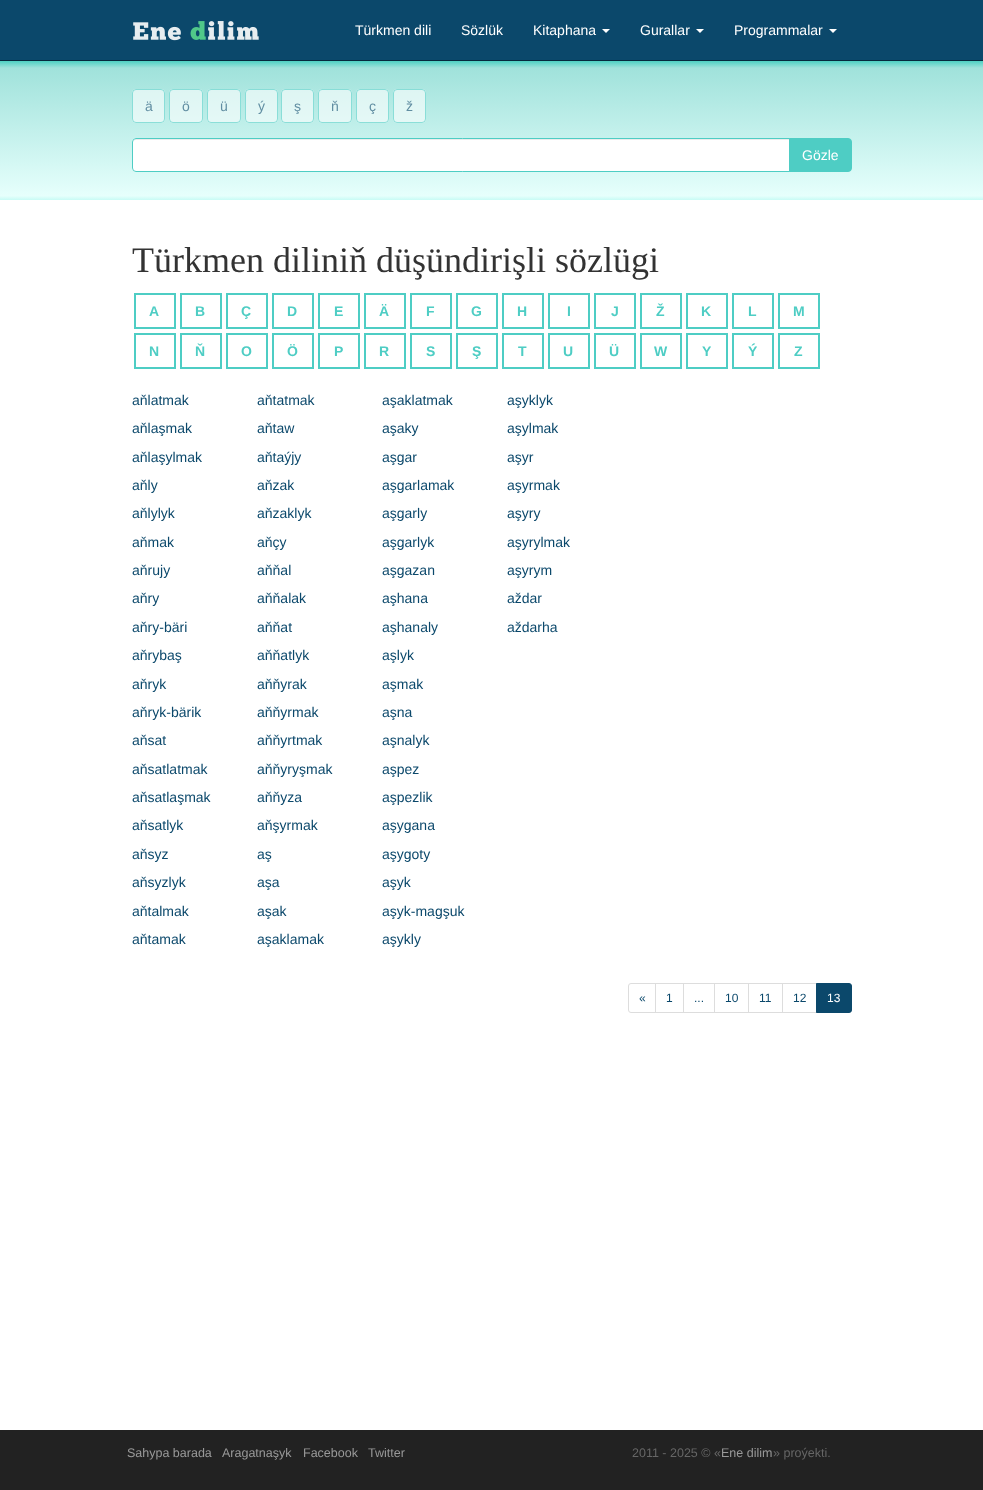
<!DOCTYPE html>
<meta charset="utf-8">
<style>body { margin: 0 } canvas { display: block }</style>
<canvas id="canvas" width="983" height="1490"></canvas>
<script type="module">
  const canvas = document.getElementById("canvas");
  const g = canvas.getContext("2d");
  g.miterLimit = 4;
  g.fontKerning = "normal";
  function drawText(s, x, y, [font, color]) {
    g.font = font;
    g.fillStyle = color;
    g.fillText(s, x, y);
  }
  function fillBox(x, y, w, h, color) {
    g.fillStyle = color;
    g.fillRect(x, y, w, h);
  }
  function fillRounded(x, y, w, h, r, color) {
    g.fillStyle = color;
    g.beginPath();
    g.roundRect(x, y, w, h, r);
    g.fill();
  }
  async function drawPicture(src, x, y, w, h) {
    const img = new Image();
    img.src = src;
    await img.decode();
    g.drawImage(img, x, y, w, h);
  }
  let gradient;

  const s1 = ["14px Liberation Sans", "#FFFFFF"];
  const s2 = ["14px Liberation Sans", "#618EA2"];
  const s3 = ["36px Liberation Serif", "#333333"];
  const s4 = ["bold 14px Liberation Sans", "#4ECDC4"];
  const s5 = ["14px Liberation Sans", "#0B486B"];
  const s6 = ["12px Liberation Sans", "#0B486B"];
  const s7 = ["12px Liberation Sans", "#FFFFFF"];
  const s8 = ["12.5px Liberation Sans", "#999999"];
  const s9 = ["12.5px Liberation Sans", "#666666"];

  fillBox(0, 0, 983, 1490, "#FFFFFF");
  fillBox(0, 0, 983, 60, "#0B486B");
  fillBox(0, 60, 983, 1, "#06293D");
  await drawPicture("pic1.png", 133, 21, 126, 20);
  drawText("Türkmen dili", 355, 35, s1);
  drawText("Sözlük", 461, 35, s1);
  drawText("Kitaphana", 533, 35, s1);
  g.beginPath();
  g.moveTo(602, 29);
  g.lineTo(610, 29);
  g.lineTo(606, 33);
  g.closePath();
  g.fill();
  drawText("Gurallar", 640, 35, s1);
  g.beginPath();
  g.moveTo(696, 29);
  g.lineTo(704, 29);
  g.lineTo(700, 33);
  g.closePath();
  g.fill();
  drawText("Programmalar", 734, 35, s1);
  g.beginPath();
  g.moveTo(829, 29);
  g.lineTo(837, 29);
  g.lineTo(833, 33);
  g.closePath();
  g.fill();
  gradient = g.createLinearGradient(492, 61, 492, 200);
  gradient.addColorStop(0, "#4ED1C2");
  gradient.addColorStop(0.05, "#A0E2DB");
  gradient.addColorStop(0.97, "#E6FFFC");
  gradient.addColorStop(1, "#C8FBF5");
  g.fillStyle = gradient;
  g.fillRect(0, 61, 983, 139);
  fillRounded(132, 89, 33, 34, 4, "rgba(255, 255, 255, 0.6)");
  g.beginPath();
  g.roundRect(132.5, 89.5, 32, 33, 3.5);
  g.strokeStyle = "rgba(78, 205, 196, 0.6)";
  g.stroke();
  drawText("ä", 145, 111, s2);
  fillRounded(169, 89, 34, 34, 4, "rgba(255, 255, 255, 0.6)");
  g.beginPath();
  g.roundRect(169.5, 89.5, 33, 33, 3.5);
  g.stroke();
  drawText("ö", 182, 111, s2);
  fillRounded(207, 89, 34, 34, 4, "rgba(255, 255, 255, 0.6)");
  g.beginPath();
  g.roundRect(207.5, 89.5, 33, 33, 3.5);
  g.stroke();
  drawText("ü", 220, 111, s2);
  fillRounded(245, 89, 33, 34, 4, "rgba(255, 255, 255, 0.6)");
  g.beginPath();
  g.roundRect(245.5, 89.5, 32, 33, 3.5);
  g.stroke();
  drawText("ý", 258, 111, s2);
  fillRounded(281, 89, 33, 34, 4, "rgba(255, 255, 255, 0.6)");
  g.beginPath();
  g.roundRect(281.5, 89.5, 32, 33, 3.5);
  g.stroke();
  drawText("ş", 294, 111, s2);
  fillRounded(318, 89, 34, 34, 4, "rgba(255, 255, 255, 0.6)");
  g.beginPath();
  g.roundRect(318.5, 89.5, 33, 33, 3.5);
  g.stroke();
  drawText("ň", 331, 111, s2);
  fillRounded(356, 89, 33, 34, 4, "rgba(255, 255, 255, 0.6)");
  g.beginPath();
  g.roundRect(356.5, 89.5, 32, 33, 3.5);
  g.stroke();
  drawText("ç", 369, 111, s2);
  fillRounded(393, 89, 33, 34, 4, "rgba(255, 255, 255, 0.6)");
  g.beginPath();
  g.roundRect(393.5, 89.5, 32, 33, 3.5);
  g.stroke();
  drawText("ž", 406, 111, s2);
  g.fillStyle = "#FFFFFF";
  g.beginPath();
  g.roundRect(132, 138, 658, 34, [4, 0, 0, 4]);
  g.fill();
  g.fillStyle = "#ECECEC";
  g.beginPath();
  g.moveTo(136, 140);
  g.lineTo(789, 140);
  g.lineTo(789, 139);
  g.lineTo(136, 139);
  g.bezierCurveTo(134, 139, 133, 141, 133, 143);
  g.bezierCurveTo(133, 141, 134, 140, 136, 140);
  g.closePath();
  g.fill();
  g.beginPath();
  g.roundRect(132.5, 138.5, 657, 33, [3.5, 0, 0, 3.5]);
  g.strokeStyle = "#4ECDC4";
  g.stroke();
  g.fillStyle = "#4ECDC4";
  g.beginPath();
  g.roundRect(789.5, 138.5, 62, 33, [0, 3.5, 3.5, 0]);
  g.fill();
  g.stroke();
  drawText("Gözle", 802, 160, s1);
  drawText("Türkmen diliniň düşündirişli sözlügi", 132, 272, s3);
  g.lineWidth = 2;
  g.strokeRect(135, 294, 40, 34);
  drawText("A", 149, 316, s4);
  g.strokeRect(181, 294, 40, 34);
  drawText("B", 195, 316, s4);
  g.strokeRect(227, 294, 40, 34);
  drawText("Ç", 241, 316, s4);
  g.strokeRect(273, 294, 40, 34);
  drawText("D", 287, 316, s4);
  g.strokeRect(319, 294, 40, 34);
  drawText("E", 334, 316, s4);
  g.strokeRect(365, 294, 40, 34);
  drawText("Ä", 379, 316, s4);
  g.strokeRect(411, 294, 40, 34);
  drawText("F", 426, 316, s4);
  g.strokeRect(457, 294, 40, 34);
  drawText("G", 471, 316, s4);
  g.strokeRect(503, 294, 40, 34);
  drawText("H", 517, 316, s4);
  g.strokeRect(549, 294, 40, 34);
  drawText("I", 567, 316, s4);
  g.strokeRect(595, 294, 40, 34);
  drawText("J", 611, 316, s4);
  g.strokeRect(641, 294, 40, 34);
  drawText("Ž", 656, 316, s4);
  g.strokeRect(687, 294, 40, 34);
  drawText("K", 701, 316, s4);
  g.strokeRect(733, 294, 40, 34);
  drawText("L", 748, 316, s4);
  g.strokeRect(779, 294, 40, 34);
  drawText("M", 793, 316, s4);
  g.strokeRect(135, 334, 40, 34);
  drawText("N", 149, 356, s4);
  g.strokeRect(181, 334, 40, 34);
  drawText("Ň", 195, 356, s4);
  g.strokeRect(227, 334, 40, 34);
  drawText("O", 241, 356, s4);
  g.strokeRect(273, 334, 40, 34);
  drawText("Ö", 287, 356, s4);
  g.strokeRect(319, 334, 40, 34);
  drawText("P", 334, 356, s4);
  g.strokeRect(365, 334, 40, 34);
  drawText("R", 379, 356, s4);
  g.strokeRect(411, 334, 40, 34);
  drawText("S", 426, 356, s4);
  g.strokeRect(457, 334, 40, 34);
  drawText("Ş", 472, 356, s4);
  g.strokeRect(503, 334, 40, 34);
  drawText("T", 518, 356, s4);
  g.strokeRect(549, 334, 40, 34);
  drawText("U", 563, 356, s4);
  g.strokeRect(595, 334, 40, 34);
  drawText("Ü", 609, 356, s4);
  g.strokeRect(641, 334, 40, 34);
  drawText("W", 654, 356, s4);
  g.strokeRect(687, 334, 40, 34);
  drawText("Y", 702, 356, s4);
  g.strokeRect(733, 334, 40, 34);
  drawText("Ý", 748, 356, s4);
  g.strokeRect(779, 334, 40, 34);
  drawText("Z", 794, 356, s4);
  drawText("aňlatmak", 132, 405, s5);
  drawText("aňlaşmak", 132, 433, s5);
  drawText("aňlaşylmak", 132, 462, s5);
  drawText("aňly", 132, 490, s5);
  drawText("aňlylyk", 132, 518, s5);
  drawText("aňmak", 132, 547, s5);
  drawText("aňrujy", 132, 575, s5);
  drawText("aňry", 132, 603, s5);
  drawText("aňry-bäri", 132, 632, s5);
  drawText("aňrybaş", 132, 660, s5);
  drawText("aňryk", 132, 689, s5);
  drawText("aňryk-bärik", 132, 717, s5);
  drawText("aňsat", 132, 745, s5);
  drawText("aňsatlatmak", 132, 774, s5);
  drawText("aňsatlaşmak", 132, 802, s5);
  drawText("aňsatlyk", 132, 830, s5);
  drawText("aňsyz", 132, 859, s5);
  drawText("aňsyzlyk", 132, 887, s5);
  drawText("aňtalmak", 132, 916, s5);
  drawText("aňtamak", 132, 944, s5);
  drawText("aňtatmak", 257, 405, s5);
  drawText("aňtaw", 257, 433, s5);
  drawText("aňtaýjy", 257, 462, s5);
  drawText("aňzak", 257, 490, s5);
  drawText("aňzaklyk", 257, 518, s5);
  drawText("aňçy", 257, 547, s5);
  drawText("aňňal", 257, 575, s5);
  drawText("aňňalak", 257, 603, s5);
  drawText("aňňat", 257, 632, s5);
  drawText("aňňatlyk", 257, 660, s5);
  drawText("aňňyrak", 257, 689, s5);
  drawText("aňňyrmak", 257, 717, s5);
  drawText("aňňyrtmak", 257, 745, s5);
  drawText("aňňyryşmak", 257, 774, s5);
  drawText("aňňyza", 257, 802, s5);
  drawText("aňşyrmak", 257, 830, s5);
  drawText("aş", 257, 859, s5);
  drawText("aşa", 257, 887, s5);
  drawText("aşak", 257, 916, s5);
  drawText("aşaklamak", 257, 944, s5);
  drawText("aşaklatmak", 382, 405, s5);
  drawText("aşaky", 382, 433, s5);
  drawText("aşgar", 382, 462, s5);
  drawText("aşgarlamak", 382, 490, s5);
  drawText("aşgarly", 382, 518, s5);
  drawText("aşgarlyk", 382, 547, s5);
  drawText("aşgazan", 382, 575, s5);
  drawText("aşhana", 382, 603, s5);
  drawText("aşhanaly", 382, 632, s5);
  drawText("aşlyk", 382, 660, s5);
  drawText("aşmak", 382, 689, s5);
  drawText("aşna", 382, 717, s5);
  drawText("aşnalyk", 382, 745, s5);
  drawText("aşpez", 382, 774, s5);
  drawText("aşpezlik", 382, 802, s5);
  drawText("aşygana", 382, 830, s5);
  drawText("aşygoty", 382, 859, s5);
  drawText("aşyk", 382, 887, s5);
  drawText("aşyk-magşuk", 382, 916, s5);
  drawText("aşykly", 382, 944, s5);
  drawText("aşyklyk", 507, 405, s5);
  drawText("aşylmak", 507, 433, s5);
  drawText("aşyr", 507, 462, s5);
  drawText("aşyrmak", 507, 490, s5);
  drawText("aşyry", 507, 518, s5);
  drawText("aşyrylmak", 507, 547, s5);
  drawText("aşyrym", 507, 575, s5);
  drawText("aždar", 507, 603, s5);
  drawText("aždarha", 507, 632, s5);
  g.beginPath();
  g.roundRect(628.5, 983.5, 27, 29, [2.5, 0, 0, 2.5]);
  g.strokeStyle = "#DDDDDD";
  g.lineWidth = 1;
  g.stroke();
  drawText("«", 639, 1002, s6);
  g.strokeRect(655.5, 983.5, 28, 29);
  drawText("1", 666, 1002, s6);
  g.strokeRect(683.5, 983.5, 31, 29);
  drawText("...", 694, 1002, s6);
  g.strokeRect(714.5, 983.5, 34, 29);
  drawText("10", 725, 1002, s6);
  g.strokeRect(748.5, 983.5, 34, 29);
  drawText("11", 759, 1002, s6);
  g.strokeRect(782.5, 983.5, 34, 29);
  drawText("12", 793, 1002, s6);
  g.beginPath();
  g.roundRect(816.5, 983.5, 35, 29, [0, 2.5, 2.5, 0]);
  g.fill();
  g.strokeStyle = "#0B486B";
  g.stroke();
  drawText("13", 827, 1002, s7);
  fillBox(0, 1430, 983, 60, "#222222");
  drawText("Sahypa barada", 127, 1457, s8);
  drawText("Aragatnaşyk", 222, 1457, s8);
  drawText("Facebook", 303, 1457, s8);
  drawText("Twitter", 368, 1457, s8);
  drawText("2011 - 2025 © «", 632, 1457, s9);
  drawText("Ene dilim", 721, 1457, s8);
  drawText("» proýekti.", 773, 1457, s9);
</script>
